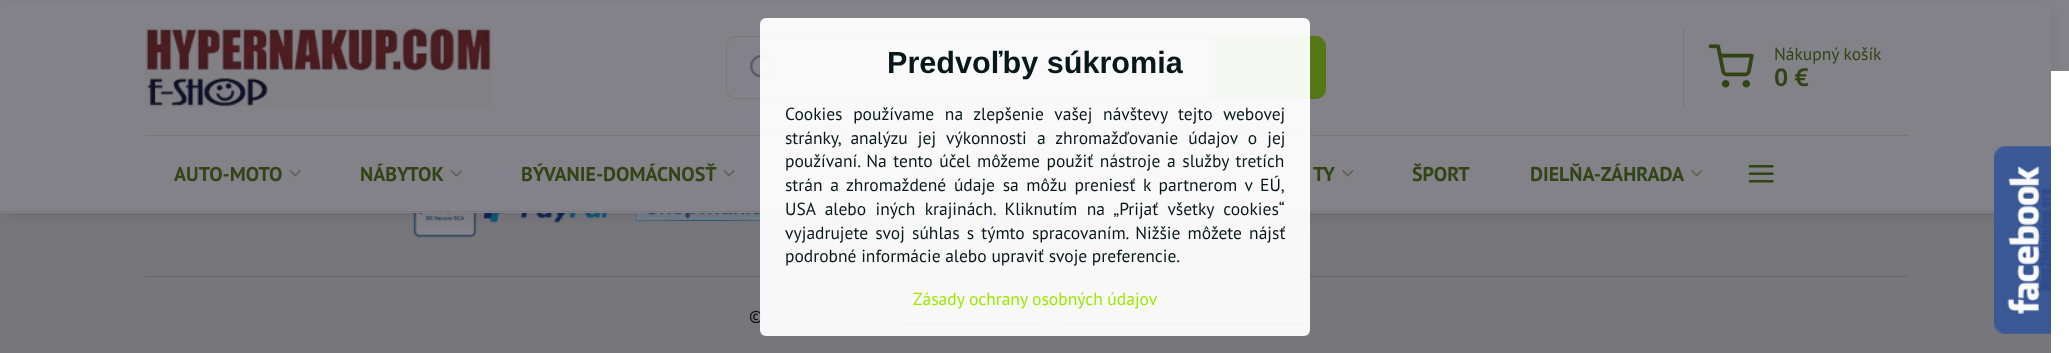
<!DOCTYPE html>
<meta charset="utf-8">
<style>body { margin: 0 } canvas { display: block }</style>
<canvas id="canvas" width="2069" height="353"></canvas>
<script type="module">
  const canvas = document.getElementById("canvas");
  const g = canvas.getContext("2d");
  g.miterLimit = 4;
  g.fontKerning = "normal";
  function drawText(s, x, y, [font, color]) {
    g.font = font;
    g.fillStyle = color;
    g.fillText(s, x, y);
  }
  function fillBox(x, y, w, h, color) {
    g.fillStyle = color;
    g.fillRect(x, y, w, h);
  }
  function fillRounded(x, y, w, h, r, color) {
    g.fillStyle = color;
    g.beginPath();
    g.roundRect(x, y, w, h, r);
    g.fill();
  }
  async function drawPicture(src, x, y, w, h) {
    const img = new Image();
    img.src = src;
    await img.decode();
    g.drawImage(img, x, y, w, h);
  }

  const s1 = ["17.5px PT Sans", "#324415"];
  const s2 = ["bold 25px PT Sans", "#324415"];
  const s3 = ["bold 20px PT Sans", "#324415"];
  const s4 = ["17.5px PT Sans", "#0F0F15"];
  const s5 = ["bold 30.6px Liberation Sans", "#08171A"];
  const s6 = ["17.5px PT Sans", "#08171A"];
  const s7 = ["17.5px PT Sans", "#9BE800"];

  fillBox(0, 0, 2069, 353, "#828288");
  fillBox(0, 213, 2051, 140, "#76767B");
  await drawPicture("pic13.png", 413, 213, 64, 25);
  await drawPicture("pic14.png", 483, 213, 125, 10);
  await drawPicture("pic15.png", 635, 213, 140, 8);
  await drawPicture("pic16.png", 827, 213, 49, 12);
  await drawPicture("pic17.png", 900, 213, 46, 13);
  await drawPicture("pic18.png", 973, 213, 50, 12);
  g.fillStyle = "rgba(15, 15, 30, 0.15)";
  g.filter = "blur(7.5px)";
  g.beginPath();
  g.rect(5, 10, 2041, 203);
  g.fill();
  g.filter = "none";
  fillBox(0, 2, 2051, 211, "#828288");
  await drawPicture("pic1.png", 145, 28, 347, 79);
  g.beginPath();
  g.roundRect(726.5, 36.5, 599, 62, 9.5);
  g.strokeStyle = "#76767B";
  g.stroke();
  await drawPicture("pic2.png", 750, 55, 25, 25);
  g.fillStyle = "#557815";
  g.beginPath();
  g.roundRect(1209, 36, 117, 63, [0, 10, 10, 0]);
  g.fill();
  fillBox(1683, 28, 1, 80, "#76767B");
  await drawPicture("pic3.png", 1708, 44, 46, 44);
  drawText("Nákupný košík", 1774, 60, s1);
  drawText("0 €", 1774, 86, s2);
  fillBox(0, 211, 1994, 1, "#76767B");
  fillBox(145, 135, 1763, 1, "#76767B");
  drawText("AUTO-MOTO", 174, 181, s3);
  await drawPicture("pic4.png", 289, 170, 12, 7);
  drawText("NÁBYTOK", 360, 181, s3);
  await drawPicture("pic5.png", 450, 170, 12, 7);
  drawText("BÝVANIE-DOMÁCNOSŤ", 521, 181, s3);
  await drawPicture("pic6.png", 723, 170, 12, 7);
  await drawPicture("pic7.png", 918, 170, 12, 7);
  await drawPicture("pic8.png", 1142, 170, 12, 8);
  drawText("TY", 1313, 181, s3);
  await drawPicture("pic9.png", 1342, 170, 12, 7);
  drawText("ŠPORT", 1412, 181, s3);
  drawText("DIELŇA-ZÁHRADA", 1530, 181, s3);
  await drawPicture("pic10.png", 1691, 170, 12, 7);
  await drawPicture("pic11.png", 1748, 165, 26, 18);
  await drawPicture("pic12.png", 1994, 146, 57, 188);
  fillBox(2051, 71, 18, 282, "#FFFFFF");
  fillBox(145, 276, 1763, 1, "#66666C");
  drawText("©", 749, 322, s4);
  fillBox(898, 323, 145, 1, "#0F0F15");
  fillBox(1058, 323, 245, 1, "#0F0F15");
  fillRounded(760, 18, 550, 318, 6, "rgba(255, 255, 255, 0.95)");
  drawText("Predvoľby súkromia", 887, 73, s5);
  g.wordSpacing = "6px";
  drawText("Cookies používame na zlepšenie vašej návštevy tejto webovej", 785, 120, s6);
  g.wordSpacing = "5.5px";
  drawText("stránky, analýzu jej výkonnosti a zhromažďovanie údajov o jej", 785, 144, s6);
  g.wordSpacing = "2px";
  drawText("používaní. Na tento účel môžeme použiť nástroje a služby tretích", 785, 167, s6);
  g.wordSpacing = "3px";
  drawText("strán a zhromaždené údaje sa môžu preniesť k partnerom v EÚ,", 785, 191, s6);
  g.wordSpacing = "4.75px";
  drawText("USA alebo iných krajinách. Kliknutím na „Prijať všetky cookies“", 785, 215, s6);
  g.wordSpacing = "2.5px";
  drawText("vyjadrujete svoj súhlas s týmto spracovaním. Nižšie môžete nájsť", 785, 239, s6);
  g.wordSpacing = "0px";
  drawText("podrobné informácie alebo upraviť svoje preferencie.", 785, 262, s6);
  drawText("Zásady ochrany osobných údajov", 913, 305, s7);
</script>
